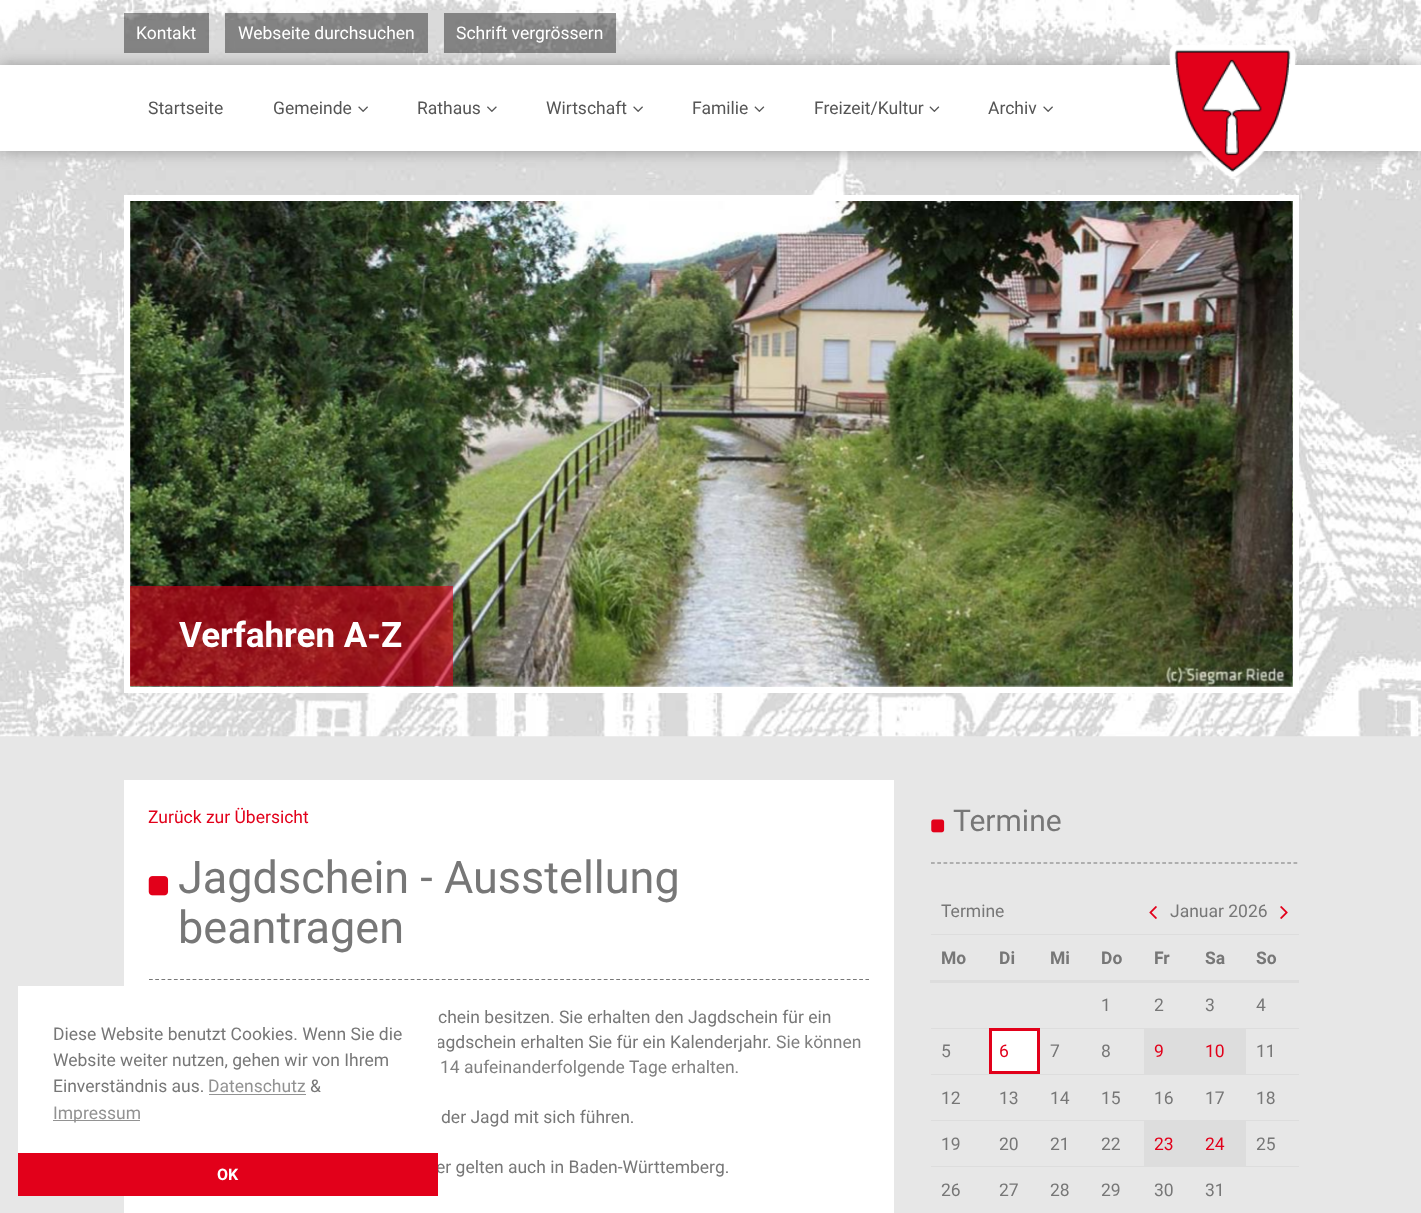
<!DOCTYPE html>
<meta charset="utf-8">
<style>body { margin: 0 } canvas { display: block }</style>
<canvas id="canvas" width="1421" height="1213"></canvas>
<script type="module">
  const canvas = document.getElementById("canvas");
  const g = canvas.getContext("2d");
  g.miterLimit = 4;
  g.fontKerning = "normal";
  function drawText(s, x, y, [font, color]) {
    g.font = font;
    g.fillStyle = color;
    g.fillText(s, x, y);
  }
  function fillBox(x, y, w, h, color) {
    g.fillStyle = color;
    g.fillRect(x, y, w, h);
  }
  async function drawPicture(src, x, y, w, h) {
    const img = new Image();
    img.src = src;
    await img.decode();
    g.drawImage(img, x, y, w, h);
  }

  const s1 = ["17.5px Roboto", "#FFFFFF"];
  const s2 = ["17.5px Roboto", "#555555"];
  const s3 = ["bold 35px Roboto", "#FFFFFF"];
  const s4 = ["17.5px Roboto", "#E2001A"];
  const s5 = ["45px Roboto", "#777777"];
  const s6 = ["17.5px Roboto", "#777777"];
  const s7 = ["17.5px Roboto", "#808080"];
  const s8 = ["30px Roboto", "#777777"];
  const s9 = ["bold 17.5px Roboto", "#777777"];
  const s10 = ["17.5px Roboto", "#929292"];
  const s11 = ["bold 16px Roboto", "#FFFFFF"];

  fillBox(0, 0, 1421, 1213, "#E7E7E7");
  await drawPicture("pic1.png", 0, 0, 1421, 737);
  g.fillStyle = "#999999";
  g.filter = "blur(7.5px)";
  g.beginPath();
  g.rect(0, 65, 1421, 86);
  g.fill();
  g.filter = "none";
  fillBox(124, 13, 85, 40, "rgba(0, 0, 0, 0.4)");
  drawText("Kontakt", 136, 39, s1);
  fillBox(225, 13, 203, 40, "rgba(0, 0, 0, 0.4)");
  drawText("Webseite durchsuchen", 238, 39, s1);
  fillBox(444, 13, 172, 40, "rgba(0, 0, 0, 0.4)");
  drawText("Schrift vergrössern", 456, 39, s1);
  fillBox(0, 65, 1421, 86, "#FFFFFF");
  drawText("Startseite", 148, 114, s2);
  drawText("Gemeinde", 273, 114, s2);
  await drawPicture("pic2.png", 358, 106, 10, 6);
  drawText("Rathaus", 417, 114, s2);
  await drawPicture("pic3.png", 487, 106, 10, 6);
  drawText("Wirtschaft", 546, 114, s2);
  await drawPicture("pic2.png", 633, 106, 10, 6);
  drawText("Familie", 692, 114, s2);
  await drawPicture("pic4.png", 754, 106, 11, 6);
  drawText("Freizeit/Kultur", 814, 114, s2);
  await drawPicture("pic4.png", 929, 106, 11, 6);
  drawText("Archiv", 988, 114, s2);
  await drawPicture("pic2.png", 1043, 106, 10, 6);
  await drawPicture("pic5.png", 1168, 44, 129, 133);
  fillBox(124, 195, 1175, 498, "#FFFFFF");
  await drawPicture("pic6.png", 130, 201, 1163, 486);
  fillBox(130, 586, 323, 100, "rgba(226, 0, 26, 0.6)");
  drawText("Verfahren A-Z", 179, 647, s3);
  await drawPicture("pic7.png", 1292, 201, 1, 486);
  fillBox(124, 780, 770, 433, "#FFFFFF");
  drawText("Zurück zur Übersicht", 148, 823, s4);
  g.beginPath();
  g.moveTo(149, 979.5);
  g.lineTo(869, 979.5);
  g.strokeStyle = "#777777";
  g.lineWidth = 1.2;
  g.setLineDash([3.75, 2.48]);
  g.stroke();
  await drawPicture("pic8.png", 148, 876, 21, 20);
  drawText("Jagdschein - Ausstellung", 178, 893, s5);
  drawText("beantragen", 178, 943, s5);
  drawText("chein besitzen. Sie erhalten den Jagdschein für ein", 438, 1023, s6);
  drawText("agdschein erhalten Sie für ein Kalenderjahr.", 436, 1048, s6);
  drawText("Sie können", 776, 1048, s7);
  drawText("14 aufeinanderfolgende Tage erhalten.", 440, 1073, s7);
  drawText("der Jagd mit sich führen.", 441, 1123, s6);
  drawText("er gelten auch in Baden-Württemberg.", 436, 1173, s6);
  g.beginPath();
  g.moveTo(931, 863);
  g.lineTo(1297.5, 863);
  g.setLineDash([3.75, 2.5]);
  g.stroke();
  await drawPicture("pic9.png", 931, 819, 14, 14);
  drawText("Termine", 953, 831, s8);
  drawText("Termine", 941, 917, s6);
  await drawPicture("pic10.png", 1149, 906, 8, 13);
  drawText("Januar 2026", 1170, 917, s6);
  await drawPicture("pic11.png", 1280, 906, 8, 13);
  drawText("Mo", 941, 964, s9);
  drawText("Di", 999, 964, s9);
  drawText("Mi", 1050, 964, s9);
  drawText("Do", 1101, 964, s9);
  drawText("Fr", 1154, 964, s9);
  drawText("Sa", 1205, 964, s9);
  fillBox(931, 934, 368, 1, "#DDDDDD");
  fillBox(930, 980, 369, 3, "#DDDDDD");
  drawText("So", 1256, 964, s9);
  drawText("1", 1101, 1011, s6);
  drawText("2", 1154, 1011, s6);
  drawText("3", 1205, 1011, s6);
  drawText("4", 1256, 1011, s6);
  fillBox(931, 1028, 59, 1, "#DDDDDD");
  drawText("5", 941, 1057, s6);
  fillBox(992, 1031, 45, 40, "#FFFFFF");
  g.strokeStyle = "#E2001A";
  g.lineWidth = 3;
  g.setLineDash([]);
  g.strokeRect(990.5, 1029.5, 48, 43);
  drawText("6", 999, 1057, s4);
  drawText("7", 1050, 1057, s6);
  fillBox(1144, 1028, 102, 46, "#DDDDDD");
  fillBox(1040, 1028, 105, 1, "#DDDDDD");
  drawText("8", 1101, 1057, s6);
  drawText("9", 1154, 1057, s4);
  drawText("10", 1205, 1057, s4);
  fillBox(1245, 1028, 54, 1, "#DDDDDD");
  drawText("11", 1256, 1057, s6);
  drawText("12", 941, 1104, s6);
  drawText("13", 999, 1104, s6);
  drawText("14", 1050, 1104, s6);
  drawText("15", 1101, 1104, s6);
  drawText("16", 1154, 1104, s6);
  drawText("17", 1205, 1104, s6);
  fillBox(931, 1074, 368, 1, "#DDDDDD");
  drawText("18", 1256, 1104, s6);
  drawText("19", 941, 1150, s6);
  drawText("20", 999, 1150, s6);
  drawText("21", 1050, 1150, s6);
  fillBox(1144, 1120, 102, 46, "#DDDDDD");
  fillBox(931, 1120, 214, 1, "#DDDDDD");
  drawText("22", 1101, 1150, s6);
  drawText("23", 1154, 1150, s4);
  drawText("24", 1205, 1150, s4);
  fillBox(1245, 1120, 54, 1, "#DDDDDD");
  drawText("25", 1256, 1150, s6);
  fillBox(931, 1166, 368, 1, "#DDDDDD");
  drawText("26", 941, 1196, s6);
  drawText("27", 999, 1196, s6);
  drawText("28", 1050, 1196, s6);
  drawText("29", 1101, 1196, s6);
  drawText("30", 1154, 1196, s6);
  drawText("31", 1205, 1196, s6);
  fillBox(18, 986, 420, 167, "#FFFFFF");
  drawText("Diese Website benutzt Cookies. Wenn Sie die", 53, 1040, s6);
  drawText("Website weiter nutzen, gehen wir von Ihrem", 53, 1066, s6);
  drawText("Einverständnis aus.", 53, 1092, s6);
  drawText("Datenschutz", 208, 1092, s10);
  fillBox(209, 1094, 97, 1, "#929292");
  drawText("&", 310, 1092, s6);
  fillBox(53, 1120, 87, 1, "#929292");
  drawText("Impressum", 53, 1119, s10);
  fillBox(18, 1153, 420, 43, "#E2001A");
  drawText("OK", 217, 1180, s11);
</script>
